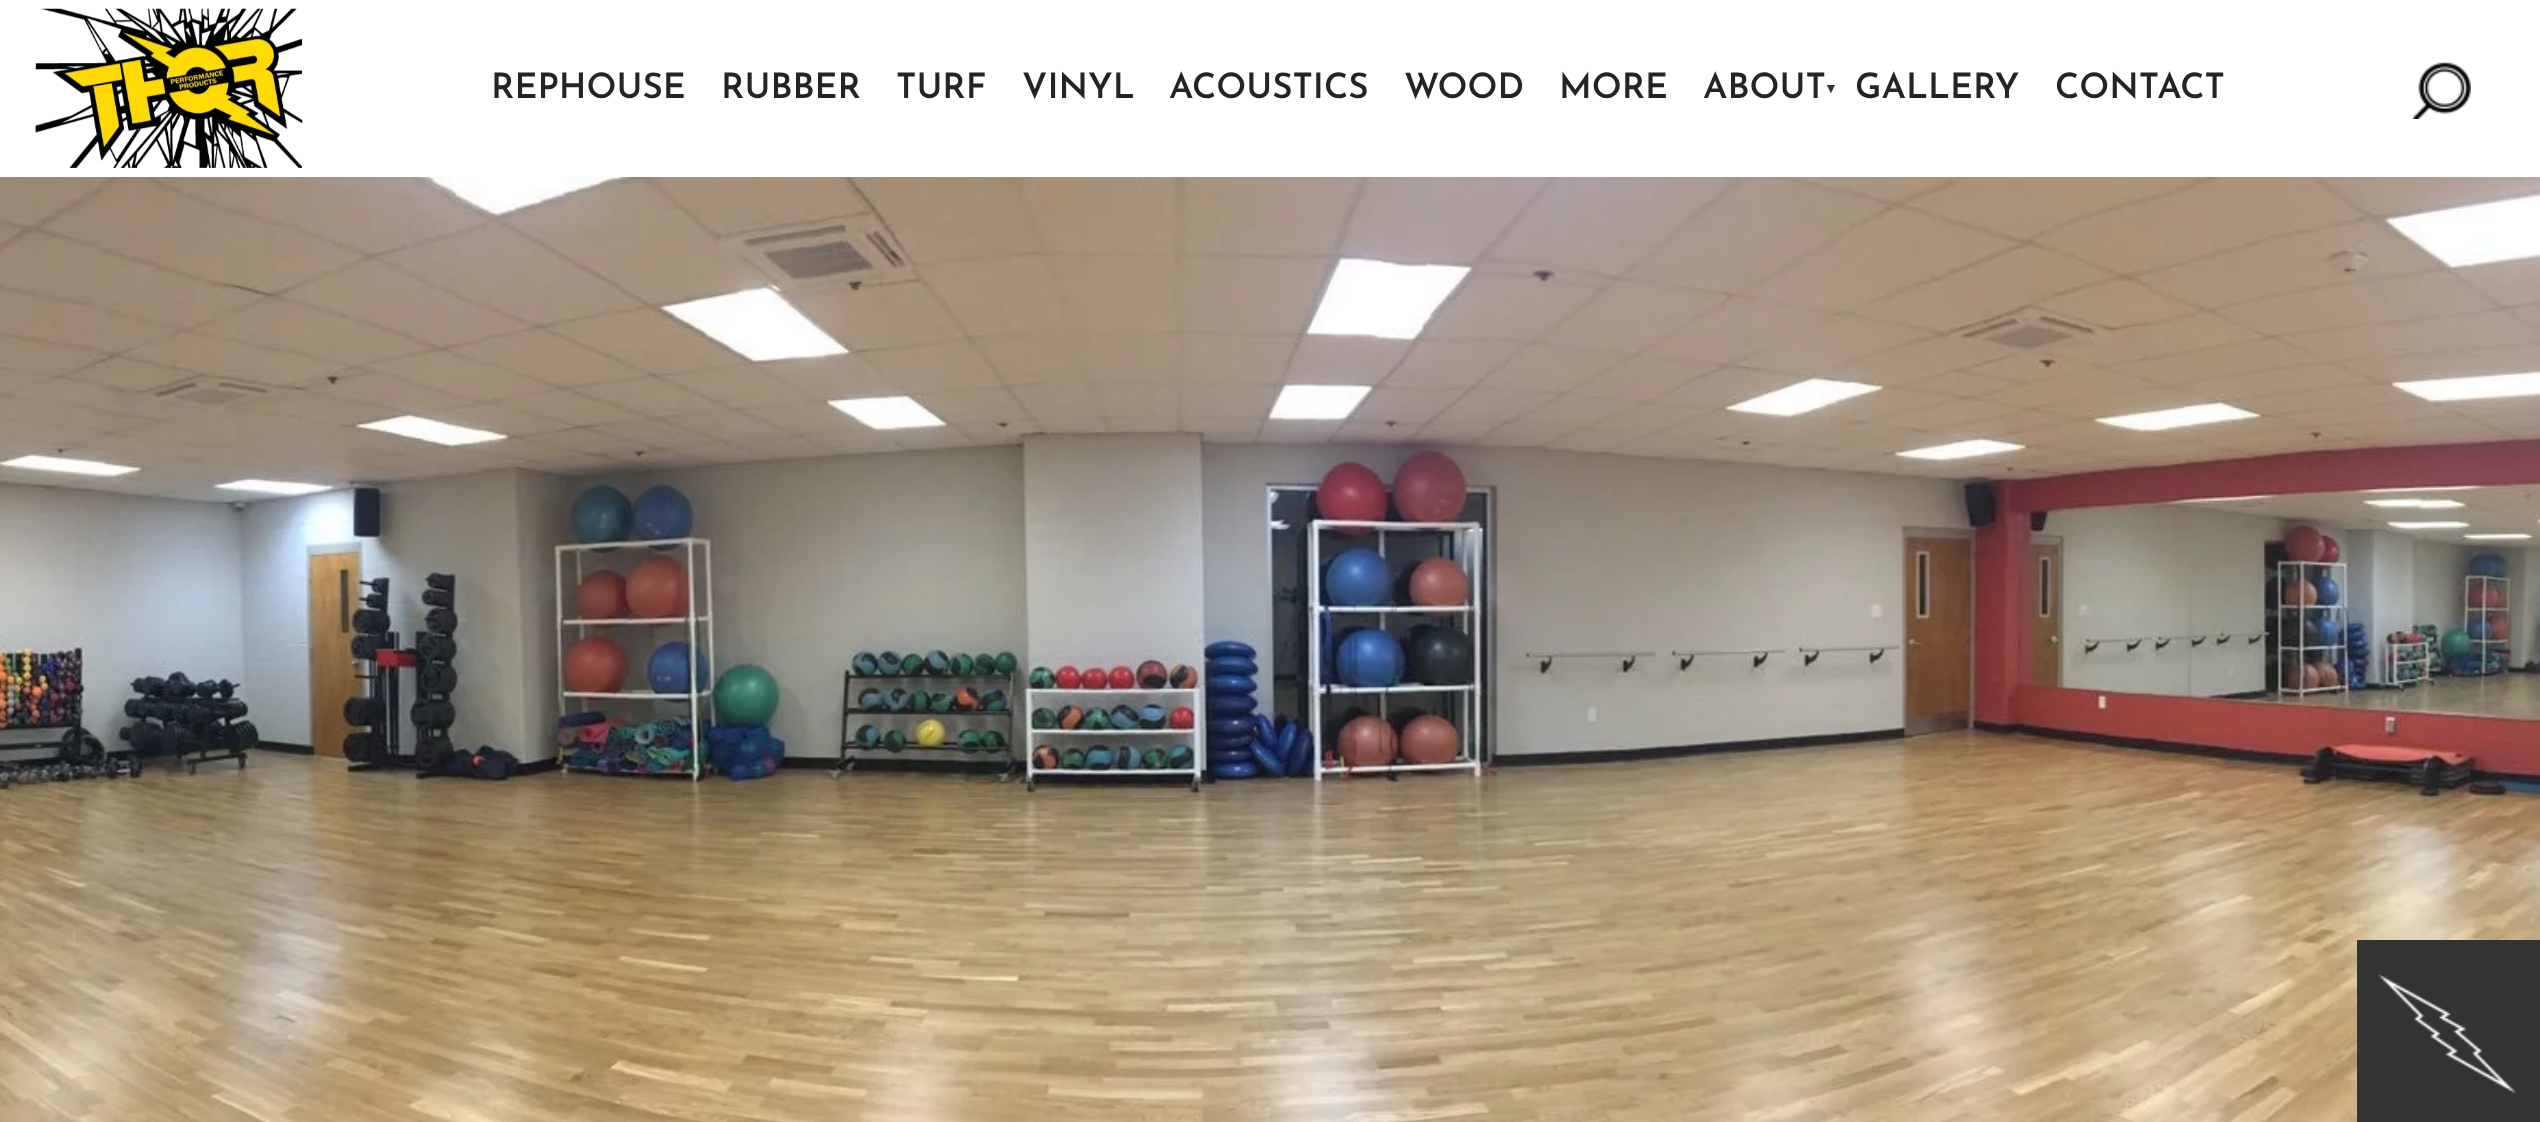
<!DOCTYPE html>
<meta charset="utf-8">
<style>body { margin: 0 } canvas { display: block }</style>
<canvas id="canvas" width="2540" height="1122"></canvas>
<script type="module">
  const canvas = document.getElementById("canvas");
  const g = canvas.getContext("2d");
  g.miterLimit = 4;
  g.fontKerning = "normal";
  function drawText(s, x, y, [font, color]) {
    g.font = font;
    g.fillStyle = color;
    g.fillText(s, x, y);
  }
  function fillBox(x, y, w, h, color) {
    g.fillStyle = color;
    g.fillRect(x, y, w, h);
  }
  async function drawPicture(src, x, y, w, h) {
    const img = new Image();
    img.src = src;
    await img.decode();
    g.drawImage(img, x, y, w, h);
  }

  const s1 = ["600 35px Josefin Sans", "#242424"];
  const s2 = ["14px Liberation Sans", "#333333"];

  fillBox(0, 0, 2540, 1122, "#FFFFFF");
  await drawPicture("pic1.png", 35, 8, 268, 160);
  drawText("REPHOUSE", 491, 98, s1);
  drawText("RUBBER", 721, 98, s1);
  drawText("TURF", 896, 98, s1);
  drawText("VINYL", 1022, 98, s1);
  drawText("ACOUSTICS", 1169, 98, s1);
  drawText("WOOD", 1404, 98, s1);
  drawText("MORE", 1559, 98, s1);
  drawText("ABOUT", 1703, 98, s1);
  drawText("▼", 1824, 93, s2);
  drawText("GALLERY", 1855, 98, s1);
  drawText("CONTACT", 2055, 98, s1);
  await drawPicture("pic2.png", 2413, 62, 58, 57);
  await drawPicture("pic3.png", 0, 177, 2540, 945);
  fillBox(2357, 940, 183, 182, "#333333");
  await drawPicture("pic4.png", 2378, 974, 139, 120);
</script>
